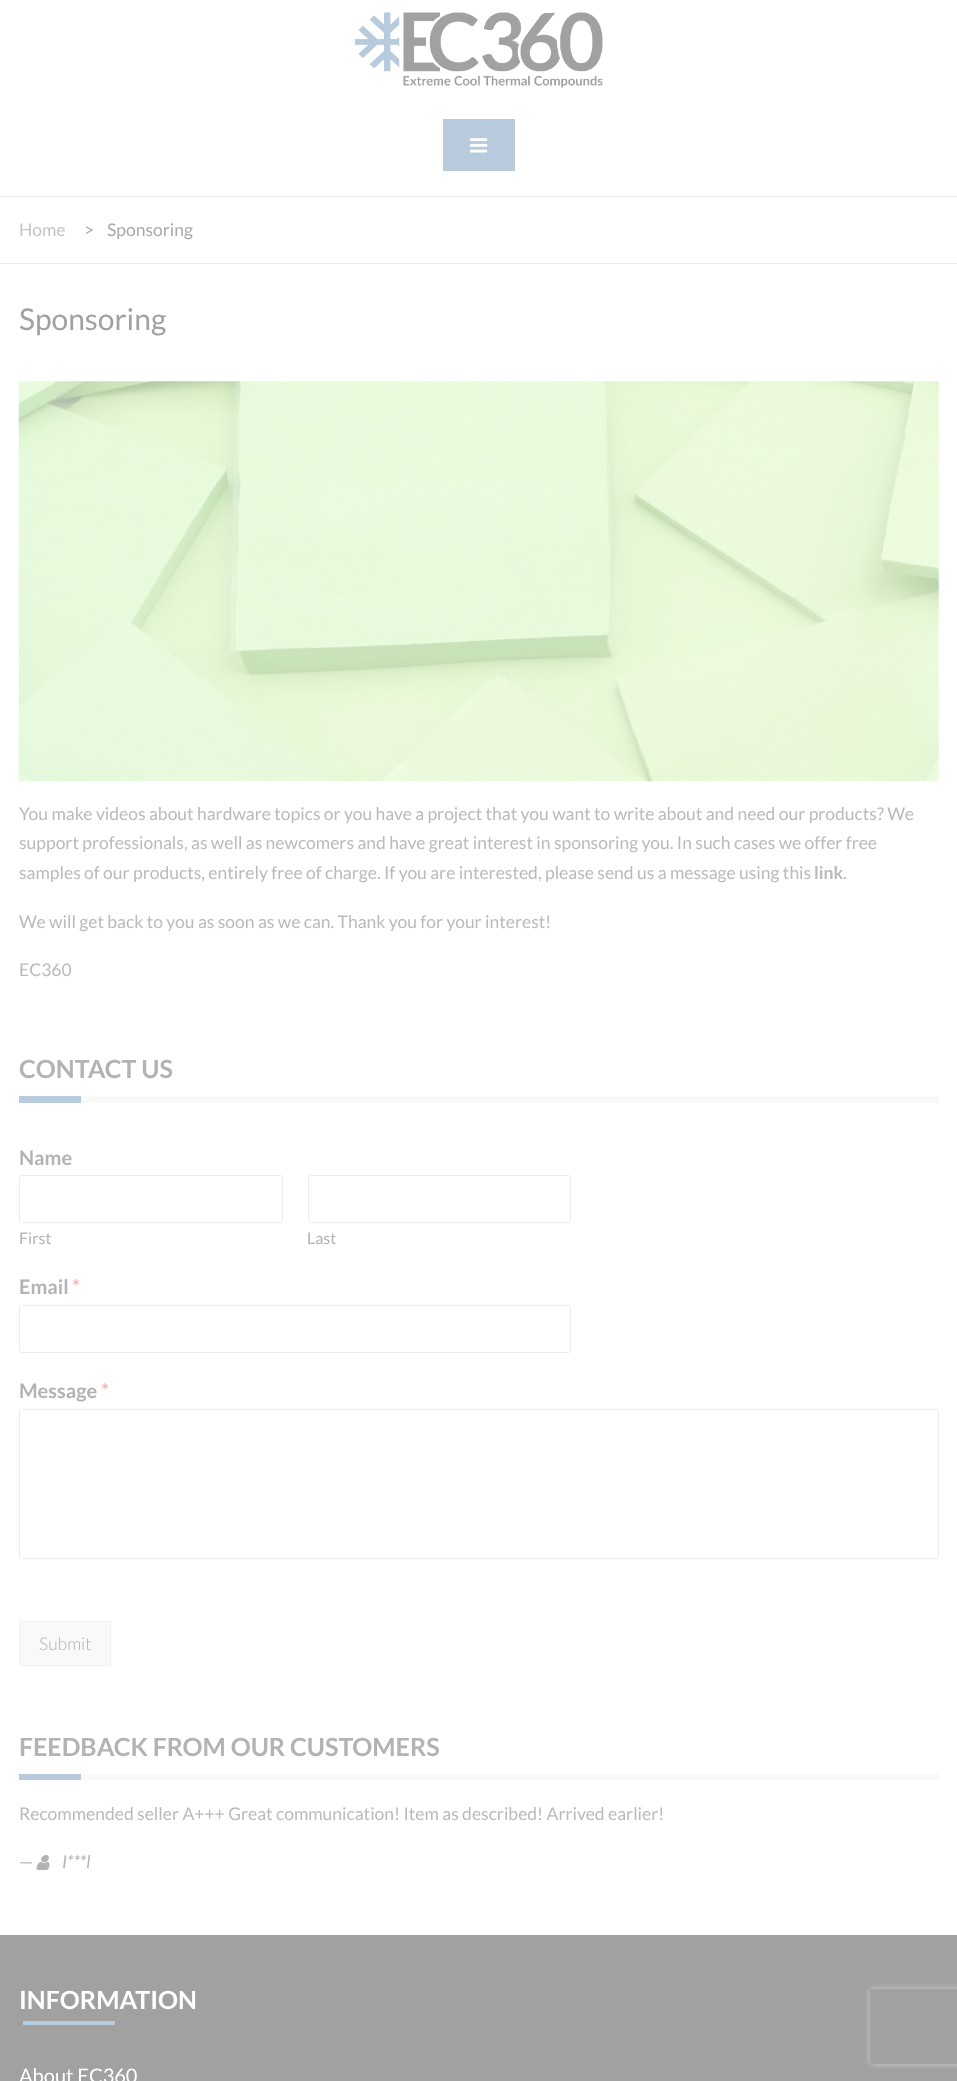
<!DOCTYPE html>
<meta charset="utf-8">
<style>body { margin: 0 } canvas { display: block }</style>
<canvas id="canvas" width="957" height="2081"></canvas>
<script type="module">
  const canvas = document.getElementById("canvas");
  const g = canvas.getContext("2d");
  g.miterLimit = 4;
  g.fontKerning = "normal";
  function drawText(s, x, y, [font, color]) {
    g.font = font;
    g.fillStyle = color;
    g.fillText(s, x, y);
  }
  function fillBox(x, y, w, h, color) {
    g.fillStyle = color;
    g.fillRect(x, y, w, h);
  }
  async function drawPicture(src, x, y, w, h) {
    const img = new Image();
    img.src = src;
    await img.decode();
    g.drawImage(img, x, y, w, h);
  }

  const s1 = ["17.5px Lato", "#C5C5C5"];
  const s2 = ["17.5px Lato", "#A8A8A8"];
  const s3 = ["30px Lato", "#A1A1A1"];
  const s4 = ["17.5px Lato", "#BABABA"];
  const s5 = ["bold 17.5px Lato", "#BABABA"];
  const s6 = ["bold 25px Lato", "#B3B3B3"];
  const s7 = ["bold 20px Lato", "#B3B3B3"];
  const s8 = ["16px Lato", "#B3B3B3"];
  const s9 = ["20px Lato", "#FFA1A1"];
  const s10 = ["300 17.5px Lato", "#B3B3B3"];
  const s11 = ["17.5px Lato", "#B3B3B3"];
  const s12 = ["italic 17.5px Lato", "#B3B3B3"];
  const s13 = ["bold 25px Lato", "#FFFFFF"];
  const s14 = ["20px Lato", "#FFFFFF"];

  fillBox(0, 0, 957, 2081, "#FFFFFF");
  fillBox(0, 196, 957, 1, "#ECECEC");
  await drawPicture("pic1.png", 355, 12, 248, 76);
  fillBox(443, 119, 72, 52, "#B7CBDD");
  await drawPicture("pic2.png", 470, 138, 18, 15);
  fillBox(0, 263, 957, 1, "#ECECEC");
  drawText("Home", 19, 236, s1);
  drawText(">", 84, 236, s2);
  drawText("Sponsoring", 107, 236, s2);
  drawText("Sponsoring", 19, 330, s3);
  await drawPicture("pic3.png", 18, 381, 921, 401);
  drawText("You make videos about hardware topics or you have a project that you want to write about and need our products? We", 19, 820, s4);
  drawText("support professionals, as well as newcomers and have great interest in sponsoring you. In such cases we offer free", 19, 849, s4);
  drawText("samples of our products, entirely free of charge. If you are interested, please send us a message using this", 19, 879, s4);
  drawText("link", 814, 879, s5);
  drawText(".", 843, 879, s4);
  drawText("We will get back to you as soon as we can. Thank you for your interest!", 19, 928, s4);
  drawText("EC360", 19, 976, s4);
  fillBox(81, 1096, 858, 7, "#F9F9F9");
  drawText("CONTACT US", 19, 1078, s6);
  fillBox(19, 1096, 62, 7, "#B7CBDD");
  drawText("Name", 19, 1165, s7);
  g.beginPath();
  g.roundRect(19.5, 1175.5, 263, 47, 2);
  g.strokeStyle = "#ECECEC";
  g.stroke();
  drawText("First", 19, 1244, s8);
  g.beginPath();
  g.roundRect(308.5, 1175.5, 262, 47, 2);
  g.stroke();
  drawText("Last", 307, 1244, s8);
  drawText("Email", 19, 1294, s7);
  drawText("*", 72, 1294, s9);
  g.beginPath();
  g.roundRect(19.5, 1305.5, 551, 47, 2);
  g.stroke();
  drawText("Message", 19, 1398, s7);
  drawText("*", 101, 1398, s9);
  g.beginPath();
  g.roundRect(19.5, 1409.5, 919, 149, 2);
  g.stroke();
  g.fillStyle = "#F9F9F9";
  g.beginPath();
  g.rect(19.5, 1621.5, 91, 44);
  g.fill();
  g.strokeStyle = "#F2F2F2";
  g.stroke();
  drawText("Submit", 39, 1650, s10);
  fillBox(81, 1774, 858, 6, "#F9F9F9");
  drawText("FEEDBACK FROM OUR CUSTOMERS", 19, 1756, s6);
  fillBox(19, 1774, 62, 6, "#B7CBDD");
  drawText("Recommended seller A+++ Great communication! Item as described! Arrived earlier!", 19, 1820, s4);
  drawText("—", 19, 1868, s11);
  await drawPicture("pic4.png", 36, 1855, 14, 15);
  drawText("I***l", 62, 1868, s12);
  fillBox(0, 1935, 957, 146, "#A1A1A1");
  drawText("INFORMATION", 19, 2009, s13);
  fillBox(23, 2021, 92, 4, "#B7CBDD");
  drawText("About EC360", 19, 2083, s14);
  g.save();
  g.beginPath();
  g.moveTo(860, 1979);
  g.lineTo(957, 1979);
  g.lineTo(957, 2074);
  g.lineTo(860, 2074);
  g.closePath();
  g.moveTo(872.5, 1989);
  g.lineTo(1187.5, 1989);
  g.bezierCurveTo(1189, 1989, 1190, 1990, 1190, 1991.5);
  g.lineTo(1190, 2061.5);
  g.bezierCurveTo(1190, 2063, 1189, 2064, 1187.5, 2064);
  g.lineTo(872.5, 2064);
  g.bezierCurveTo(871, 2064, 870, 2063, 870, 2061.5);
  g.lineTo(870, 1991.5);
  g.bezierCurveTo(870, 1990, 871, 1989, 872.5, 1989);
  g.closePath();
  g.clip("evenodd");
  g.fillStyle = "#D0D0D0";
  g.filter = "blur(3px)";
  g.beginPath();
  g.roundRect(870, 1989, 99, 75, 2.5);
  g.fill();
  g.filter = "none";
  g.restore();
</script>
